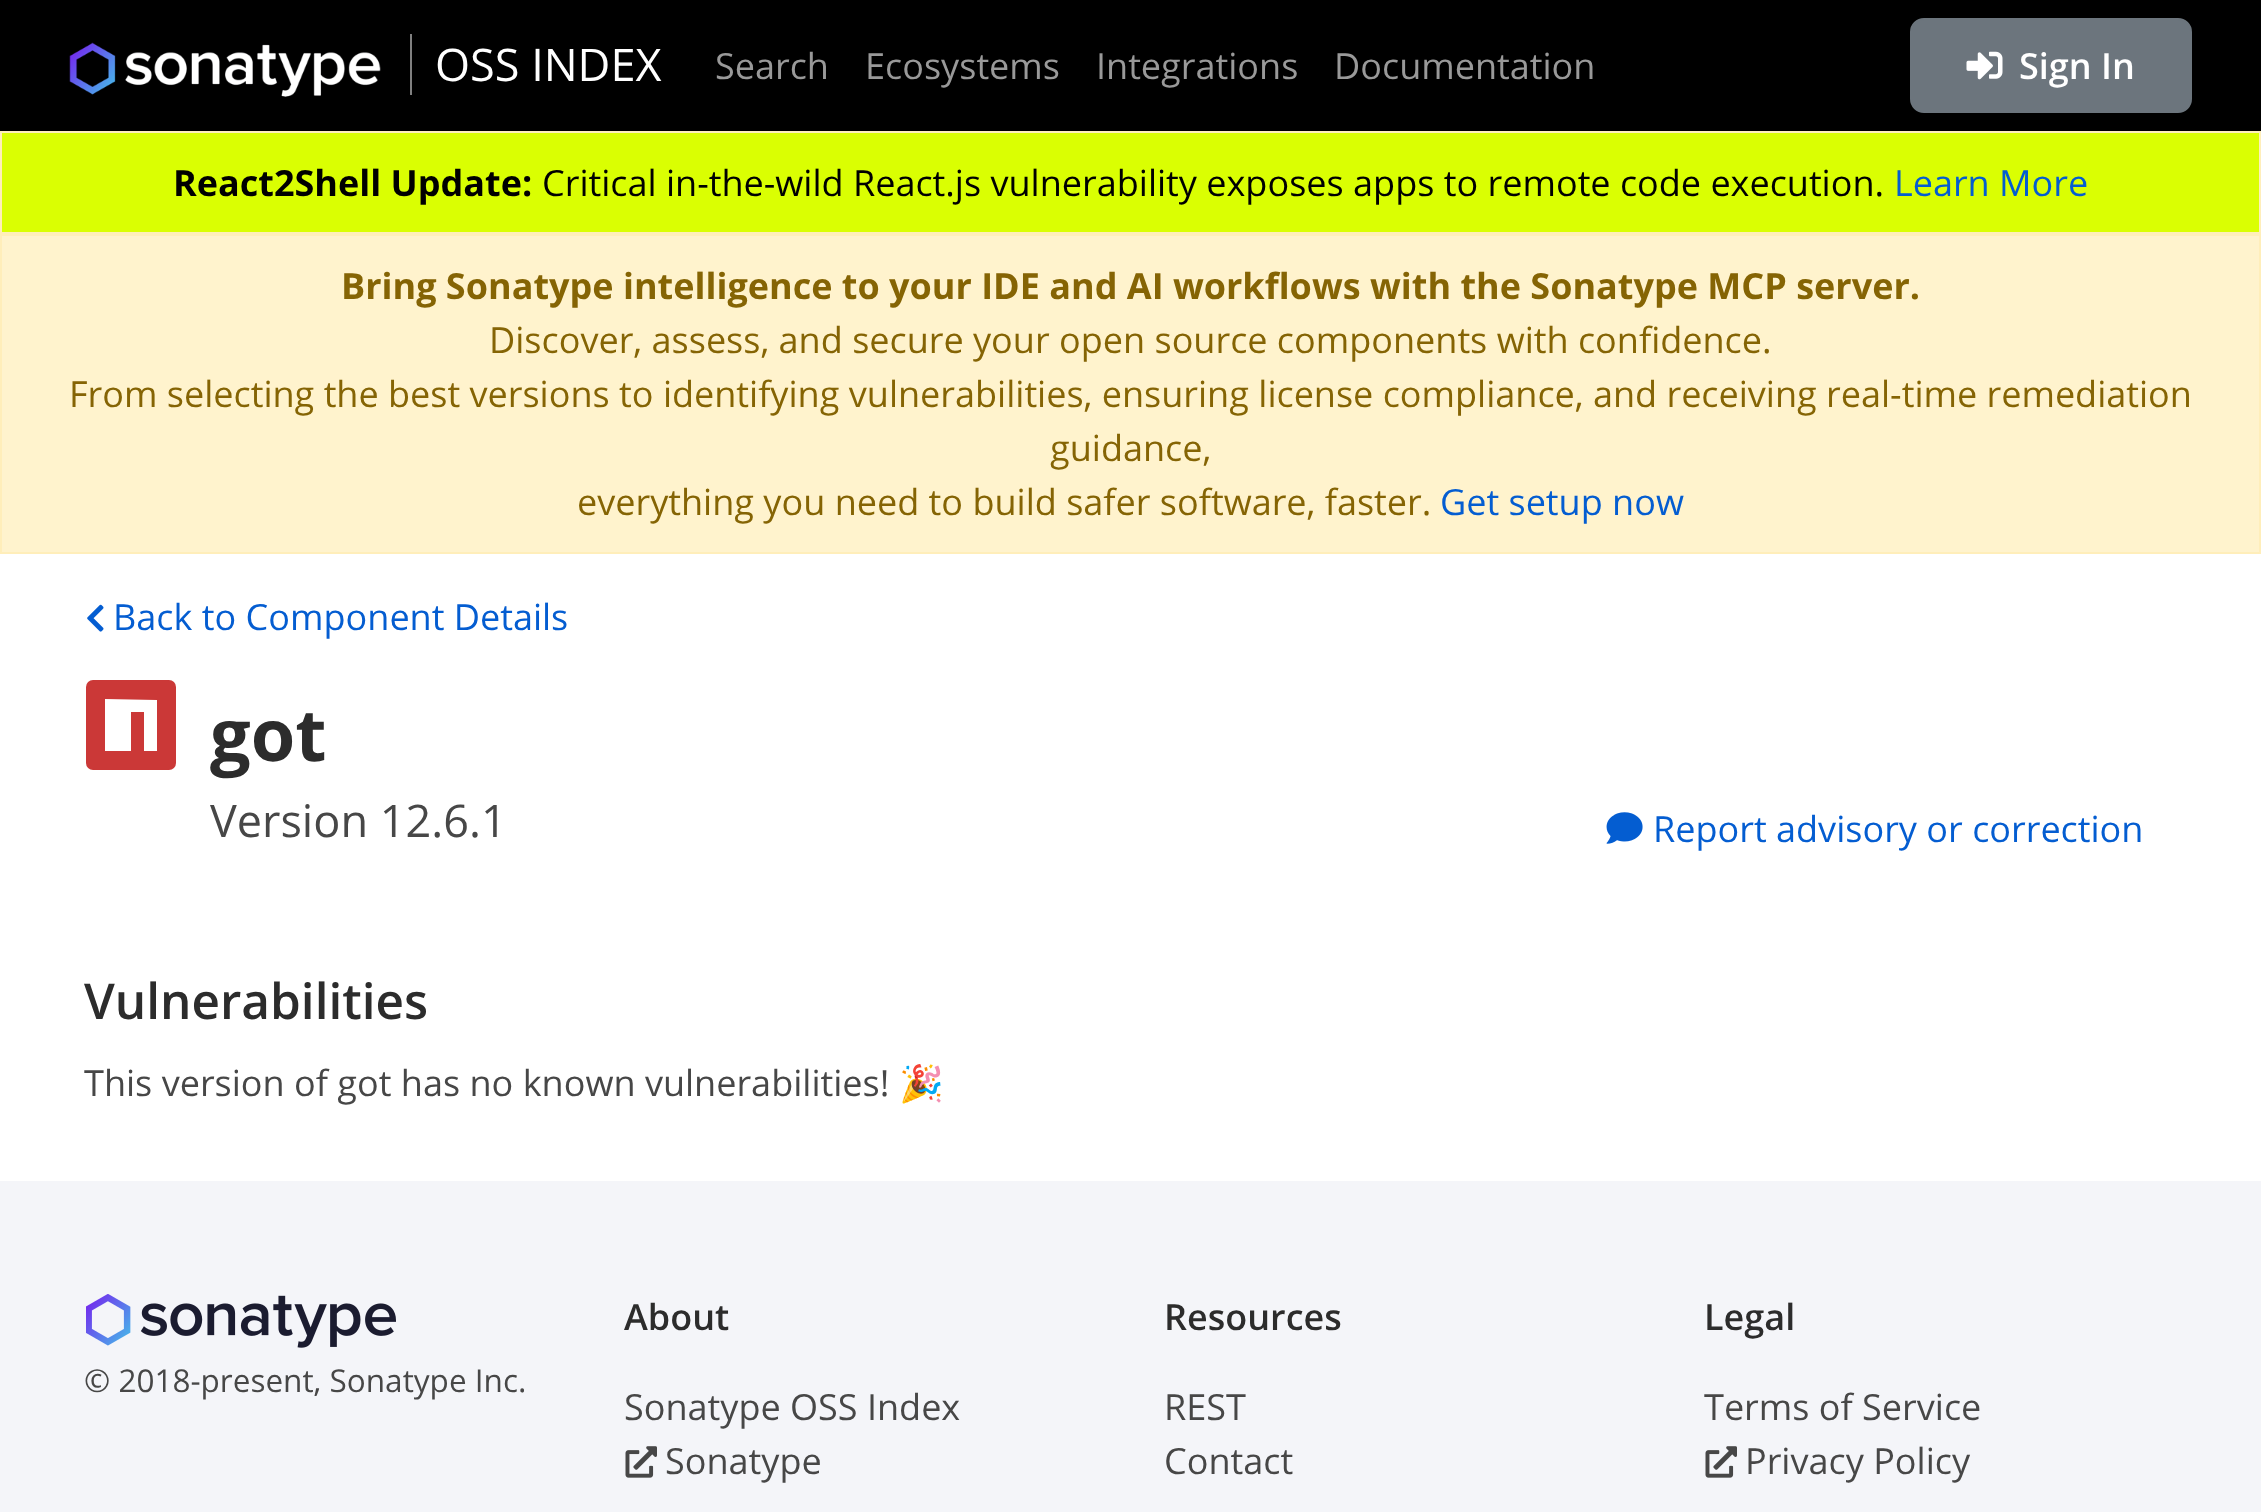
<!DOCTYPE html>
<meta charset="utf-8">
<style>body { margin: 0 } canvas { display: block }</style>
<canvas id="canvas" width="2261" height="1512"></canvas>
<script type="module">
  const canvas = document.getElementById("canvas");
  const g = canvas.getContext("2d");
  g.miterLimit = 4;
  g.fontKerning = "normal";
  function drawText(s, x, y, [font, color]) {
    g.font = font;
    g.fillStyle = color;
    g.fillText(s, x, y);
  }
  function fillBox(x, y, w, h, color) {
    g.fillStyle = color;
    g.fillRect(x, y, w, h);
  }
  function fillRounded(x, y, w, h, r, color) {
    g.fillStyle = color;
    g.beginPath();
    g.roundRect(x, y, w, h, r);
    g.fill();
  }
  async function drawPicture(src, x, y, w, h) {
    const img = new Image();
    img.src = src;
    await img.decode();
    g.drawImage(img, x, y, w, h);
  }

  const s1 = ["45px Open Sans", "#FFFFFF"];
  const s2 = ["36px Open Sans", "#999999"];
  const s3 = ["600 36px Open Sans", "#FFFFFF"];
  const s4 = ["bold 36px Open Sans", "#000000"];
  const s5 = ["36px Open Sans", "#000000"];
  const s6 = ["36px Open Sans", "#045DD1"];
  const s7 = ["bold 36px Open Sans", "#856404"];
  const s8 = ["36px Open Sans", "#856404"];
  const s9 = ["bold 72px Open Sans", "#2C2C2C"];
  const s10 = ["45px Open Sans", "#474747"];
  const s11 = ["600 49.5px Open Sans", "#2C2C2C"];
  const s12 = ["36px Open Sans", "#474747"];
  const s13 = ["36px Noto Color Emoji", "#474747"];
  const s14 = ["31.5px Open Sans", "#474747"];
  const s15 = ["600 36px Open Sans", "#2C2C2C"];

  fillBox(0, 0, 2261, 1512, "#FFFFFF");
  fillBox(0, 0, 2261, 131, "#000000");
  await drawPicture("pic1.png", 69, 42, 312, 55);
  drawText("OSS INDEX", 435, 81, s1);
  fillBox(410, 34, 2, 61, "#808080");
  drawText("Search", 715, 79, s2);
  drawText("Ecosystems", 865, 79, s2);
  drawText("Integrations", 1096, 79, s2);
  drawText("Documentation", 1334, 79, s2);
  g.fillStyle = "#6C757D";
  g.beginPath();
  g.roundRect(1911, 19, 280, 93, 13);
  g.fill();
  g.strokeStyle = "#6C757D";
  g.lineWidth = 2;
  g.stroke();
  await drawPicture("pic2.png", 1966, 51, 37, 29);
  drawText("Sign In", 2019, 79, s3);
  g.fillStyle = "#DAFF02";
  g.beginPath();
  g.rect(1, 132, 2259, 101);
  g.fill();
  g.strokeStyle = "#FFEEBA";
  g.stroke();
  drawText("React2Shell Update:", 173, 196, s4);
  drawText("Critical in-the-wild React.js vulnerability exposes apps to remote code execution.", 542, 196, s5);
  drawText("Learn More", 1894, 196, s6);
  g.fillStyle = "#FFF3CD";
  g.beginPath();
  g.rect(1, 235, 2259, 318);
  g.fill();
  g.stroke();
  drawText("Bring Sonatype intelligence to your IDE and AI workflows with the Sonatype MCP server.", 341, 299, s7);
  drawText("Discover, assess, and secure your open source components with confidence.", 489, 353, s8);
  drawText("From selecting the best versions to identifying vulnerabilities, ensuring license compliance, and receiving real-time remediation", 69, 407, s8);
  drawText("guidance,", 1050, 461, s8);
  drawText("everything you need to build safer software, faster.", 577, 515, s8);
  drawText("Get setup now", 1440, 515, s6);
  await drawPicture("pic3.png", 87, 604, 17, 28);
  drawText("Back to Component Details", 113, 630, s6);
  fillRounded(86, 680, 90, 90, 7, "#CB3837");
  g.fillStyle = "#FFFFFF";
  g.beginPath();
  g.moveTo(105, 751);
  g.lineTo(131, 751);
  g.lineTo(131, 712);
  g.lineTo(144, 712);
  g.lineTo(144, 751);
  g.lineTo(157, 751);
  g.lineTo(157, 700);
  g.lineTo(105, 699);
  g.closePath();
  g.fill();
  drawText("got", 210, 761, s9);
  drawText("Version 12.6.1", 210, 837, s10);
  await drawPicture("pic4.png", 1606, 812, 37, 32);
  drawText("Report advisory or correction", 1653, 842, s6);
  drawText("Vulnerabilities", 84, 1019, s11);
  drawText("This version of got has no known vulnerabilities!", 84, 1096, s12);
  drawText("🎉", 899, 1096, s13);
  fillBox(0, 1181, 2261, 331, "#F4F5F9");
  await drawPicture("pic5.png", 86, 1294, 310, 54);
  drawText("© 2018-present, Sonatype Inc.", 84, 1392, s14);
  drawText("About", 624, 1330, s15);
  drawText("Sonatype OSS Index", 624, 1420, s12);
  await drawPicture("pic6.png", 625, 1446, 32, 32);
  drawText("Sonatype", 665, 1474, s12);
  drawText("Resources", 1164, 1330, s15);
  drawText("REST", 1164, 1420, s12);
  drawText("Contact", 1164, 1474, s12);
  drawText("Legal", 1704, 1330, s15);
  drawText("Terms of Service", 1704, 1420, s12);
  await drawPicture("pic6.png", 1705, 1446, 32, 32);
  drawText("Privacy Policy", 1745, 1474, s12);
</script>
